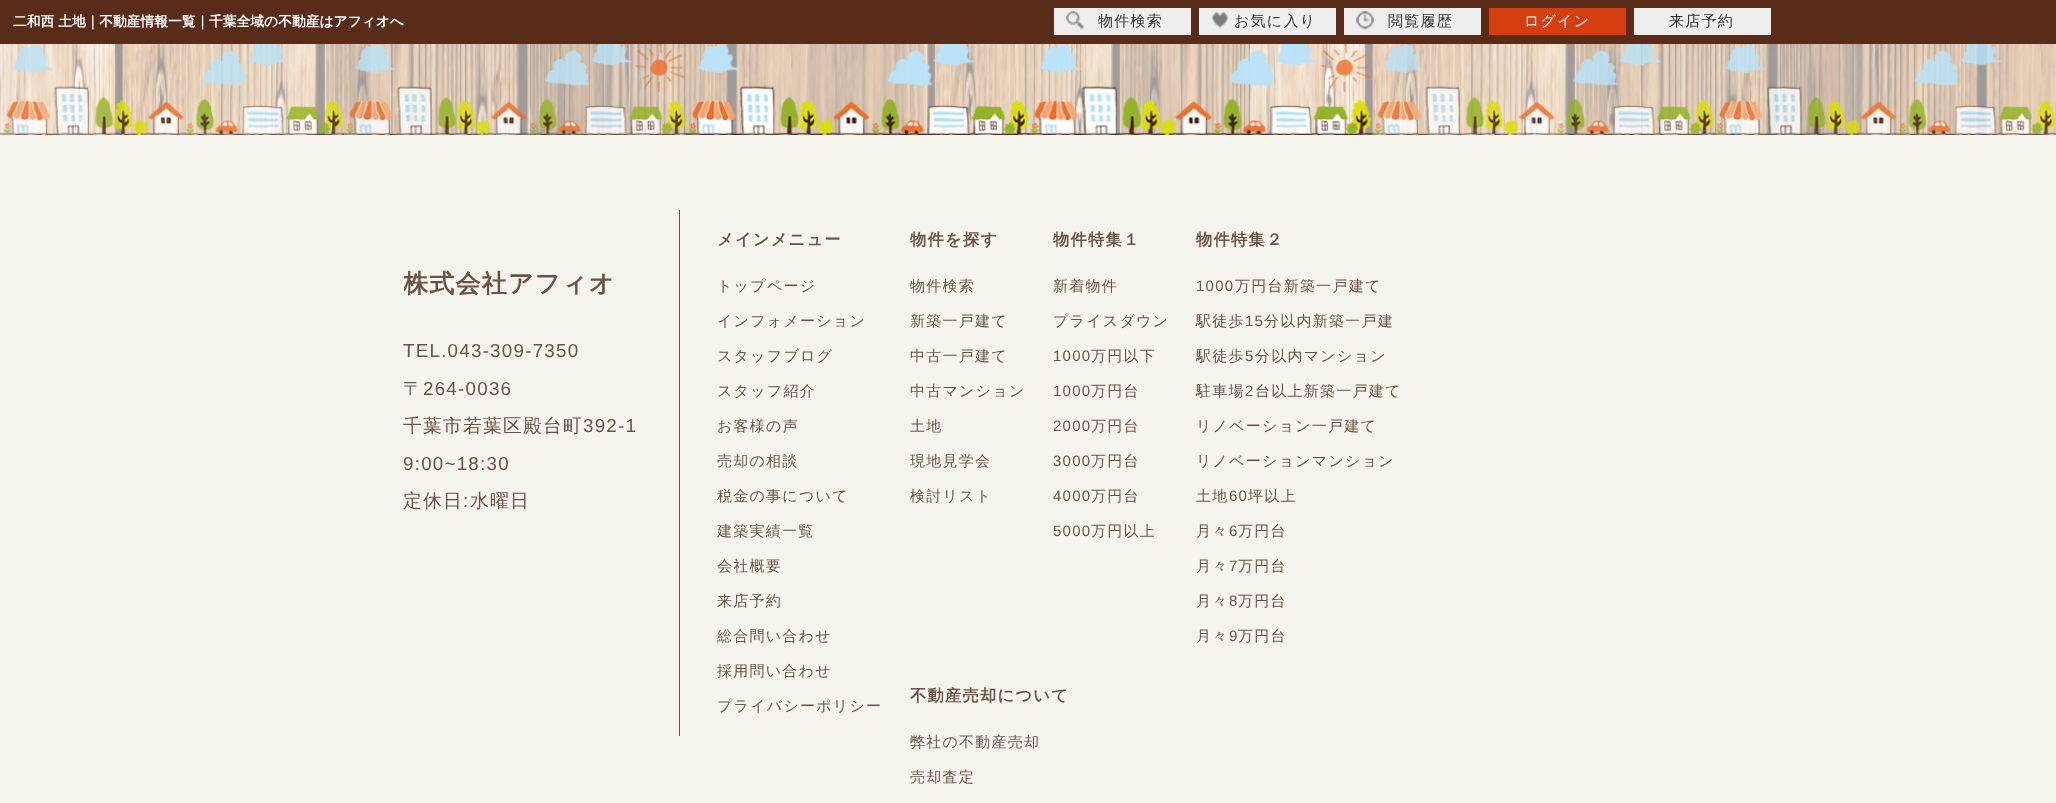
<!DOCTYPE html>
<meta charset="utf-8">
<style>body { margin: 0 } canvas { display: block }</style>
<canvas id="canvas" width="2056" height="803"></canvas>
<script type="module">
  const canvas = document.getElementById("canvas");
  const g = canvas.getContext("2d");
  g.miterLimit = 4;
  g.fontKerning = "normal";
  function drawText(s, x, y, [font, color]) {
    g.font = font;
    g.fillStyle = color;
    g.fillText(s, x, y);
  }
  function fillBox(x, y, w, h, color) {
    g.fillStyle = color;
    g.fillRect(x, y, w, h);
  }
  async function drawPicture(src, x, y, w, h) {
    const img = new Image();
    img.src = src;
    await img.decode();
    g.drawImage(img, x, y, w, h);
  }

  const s1 = ["bold 13.75px WenQuanYi Zen Hei", "#FFFFFF"];
  const s2 = ["500 15px WenQuanYi Zen Hei", "#303030"];
  const s3 = ["500 15px WenQuanYi Zen Hei", "#FFFFFF"];
  const s4 = ["bold 25px WenQuanYi Zen Hei", "#6C5246"];
  const s5 = ["18.75px Liberation Sans", "#6C5246"];
  const s6 = ["500 18.75px WenQuanYi Zen Hei", "#6C5246"];
  const s7 = ["bold 16.25px WenQuanYi Zen Hei", "#6C5246"];
  const s8 = ["500 15px WenQuanYi Zen Hei", "#6C5246"];
  const s9 = ["15px Liberation Sans", "#6C5246"];

  fillBox(0, 0, 2056, 803, "#FFFFFF");
  await drawPicture("pic1.png", 0, 44, 2056, 91);
  fillBox(0, 0, 2056, 44, "#582C18");
  drawText("二和西 土地｜不動産情報一覧｜千葉全域の不動産はアフィオへ", 13, 26, s1);
  fillBox(1054, 8, 137, 27, "#EEEEEE");
  await drawPicture("pic2.png", 1066, 11, 18, 19);
  g.letterSpacing = "1.25px";
  drawText("物件検索", 1098, 26, s2);
  fillBox(1199, 8, 137, 27, "#EEEEEE");
  await drawPicture("pic3.png", 1212, 12, 16, 17);
  drawText("お気に入り", 1234, 26, s2);
  fillBox(1344, 8, 137, 27, "#EEEEEE");
  await drawPicture("pic4.png", 1356, 11, 18, 19);
  drawText("閲覧履歴", 1388, 26, s2);
  fillBox(1489, 8, 137, 27, "#D33F0E");
  drawText("ログイン", 1524, 26, s3);
  fillBox(1634, 8, 137, 27, "#EEEEEE");
  drawText("来店予約", 1669, 26, s2);
  await drawPicture("pic5.png", 0, 44, 2056, 91);
  fillBox(0, 135, 2056, 668, "#F5F5ED");
  g.save();
  g.beginPath();
  g.rect(404, 135, 1250, 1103);
  g.clip();
  drawText("株式会社アフィオ", 403, 292, s4);
  g.restore();
  drawText("TEL.043-309-7350", 403, 357, s5);
  drawText("〒", 403, 395, s6);
  drawText("264-0036", 423, 395, s5);
  drawText("千葉市若葉区殿台町", 403, 432, s6);
  drawText("392-1", 583, 432, s5);
  drawText("9:00~18:30", 403, 470, s5);
  drawText("定休日", 403, 507, s6);
  drawText(":", 463, 507, s5);
  drawText("水曜日", 470, 507, s6);
  fillBox(679, 210, 1, 526, "#6C5246");
  drawText("メインメニュー", 717, 245, s7);
  drawText("トップページ", 717, 291, s8);
  drawText("インフォメーション", 717, 326, s8);
  drawText("スタッフブログ", 717, 361, s8);
  drawText("スタッフ紹介", 717, 396, s8);
  drawText("お客様の声", 717, 431, s8);
  drawText("売却の相談", 717, 466, s8);
  drawText("税金の事について", 717, 501, s8);
  drawText("建築実績一覧", 717, 536, s8);
  drawText("会社概要", 717, 571, s8);
  drawText("来店予約", 717, 606, s8);
  drawText("総合問い合わせ", 717, 641, s8);
  drawText("採用問い合わせ", 717, 676, s8);
  drawText("プライバシーポリシー", 717, 711, s8);
  drawText("物件を探す", 910, 245, s7);
  drawText("物件検索", 910, 291, s8);
  drawText("新築一戸建て", 910, 326, s8);
  drawText("中古一戸建て", 910, 361, s8);
  drawText("中古マンション", 910, 396, s8);
  drawText("土地", 910, 431, s8);
  drawText("現地見学会", 910, 466, s8);
  drawText("検討リスト", 910, 501, s8);
  drawText("物件特集１", 1053, 245, s7);
  drawText("新着物件", 1053, 291, s8);
  drawText("プライスダウン", 1053, 326, s8);
  drawText("1000", 1053, 361, s9);
  drawText("万円以下", 1091, 361, s8);
  drawText("1000", 1053, 396, s9);
  drawText("万円台", 1091, 396, s8);
  drawText("2000", 1053, 431, s9);
  drawText("万円台", 1091, 431, s8);
  drawText("3000", 1053, 466, s9);
  drawText("万円台", 1091, 466, s8);
  drawText("4000", 1053, 501, s9);
  drawText("万円台", 1091, 501, s8);
  drawText("5000", 1053, 536, s9);
  drawText("万円以上", 1091, 536, s8);
  drawText("物件特集２", 1196, 245, s7);
  drawText("1000", 1196, 291, s9);
  drawText("万円台新築一戸建て", 1235, 291, s8);
  drawText("駅徒歩", 1196, 326, s8);
  drawText("15", 1245, 326, s9);
  drawText("分以内新築一戸建", 1264, 326, s8);
  drawText("駅徒歩", 1196, 361, s8);
  drawText("5", 1245, 361, s9);
  drawText("分以内マンション", 1255, 361, s8);
  drawText("駐車場", 1196, 396, s8);
  drawText("2", 1245, 396, s9);
  drawText("台以上新築一戸建て", 1255, 396, s8);
  drawText("リノベーション一戸建て", 1196, 431, s8);
  drawText("リノベーションマンション", 1196, 466, s8);
  drawText("土地", 1196, 501, s8);
  drawText("60", 1229, 501, s9);
  drawText("坪以上", 1248, 501, s8);
  drawText("月々", 1196, 536, s8);
  drawText("6", 1229, 536, s9);
  drawText("万円台", 1238, 536, s8);
  drawText("月々", 1196, 571, s8);
  drawText("7", 1229, 571, s9);
  drawText("万円台", 1238, 571, s8);
  drawText("月々", 1196, 606, s8);
  drawText("8", 1229, 606, s9);
  drawText("万円台", 1238, 606, s8);
  drawText("月々", 1196, 641, s8);
  drawText("9", 1229, 641, s9);
  drawText("万円台", 1238, 641, s8);
  drawText("不動産売却について", 910, 701, s7);
  drawText("弊社の不動産売却", 910, 747, s8);
  drawText("売却査定", 910, 782, s8);
</script>
